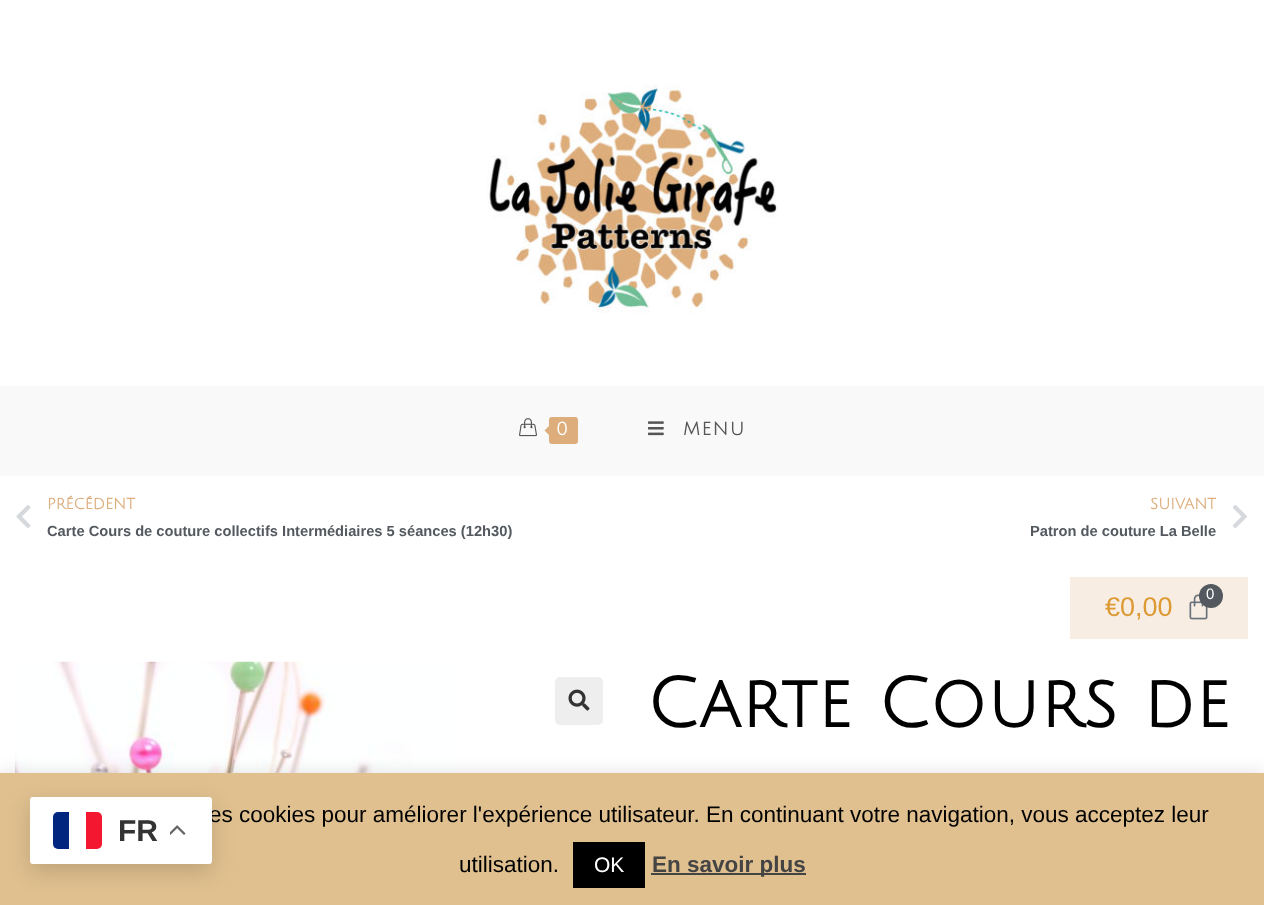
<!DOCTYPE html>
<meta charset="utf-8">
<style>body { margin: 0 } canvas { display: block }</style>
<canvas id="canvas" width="1264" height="905"></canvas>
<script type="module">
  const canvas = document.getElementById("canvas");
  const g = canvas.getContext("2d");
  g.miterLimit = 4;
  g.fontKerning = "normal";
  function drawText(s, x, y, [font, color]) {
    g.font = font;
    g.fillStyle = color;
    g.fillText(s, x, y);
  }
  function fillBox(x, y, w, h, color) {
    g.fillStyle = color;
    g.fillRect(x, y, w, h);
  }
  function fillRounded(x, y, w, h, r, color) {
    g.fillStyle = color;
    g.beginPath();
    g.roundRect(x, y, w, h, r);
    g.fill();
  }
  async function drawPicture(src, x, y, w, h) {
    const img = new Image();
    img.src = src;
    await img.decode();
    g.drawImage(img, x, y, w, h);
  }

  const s1 = ["bold 18px Julius Sans One", "#FFFFFF"];
  const s2 = ["bold 18px Julius Sans One", "#555555"];
  const s3 = ["bold 15px Julius Sans One", "#DDAD7C"];
  const s4 = ["bold 14.7px Liberation Sans", "#54595F"];
  const s5 = ["15px Liberation Sans", "#FFFFFF"];
  const s6 = ["27px Liberation Sans", "#DD9933"];
  const s7 = ["bold 69px Julius Sans One", "#000000"];
  const s8 = ["22.5px Liberation Sans", "#000000"];
  const s9 = ["bold 30px Liberation Sans", "#333333"];
  const s10 = ["21px Liberation Sans", "#FFFFFF"];
  const s11 = ["bold 22.5px Liberation Sans", "#444444"];

  fillBox(0, 0, 1264, 905, "#FFFFFF");
  await drawPicture("pic1.png", 487, 84, 291, 229);
  fillBox(0, 386, 1264, 90, "#F9F9F9");
  await drawPicture("pic2.png", 519, 418, 18, 19);
  fillRounded(549, 417, 29, 27, 3, "#DDAD7C");
  g.beginPath();
  g.moveTo(552, 423);
  g.lineTo(552, 438);
  g.lineTo(544.5, 430.5);
  g.closePath();
  g.fill();
  g.letterSpacing = "1.5px";
  drawText("0", 556, 435, s1);
  await drawPicture("pic3.png", 648, 421, 16, 15);
  drawText("MENU", 683, 435, s2);
  await drawPicture("pic4.png", 16, 505, 15, 23);
  g.letterSpacing = "0px";
  drawText("PRÉCÉDENT", 47, 509, s3);
  drawText("Carte Cours de couture collectifs Intermédiaires 5 séances (12h30)", 47, 536, s4);
  drawText("SUIVANT", 1150, 509, s3);
  g.save();
  g.beginPath();
  g.rect(1031, 518, 186, 27);
  g.clip();
  drawText("Patron de couture La Belle", 1030, 536, s4);
  g.restore();
  await drawPicture("pic5.png", 1233, 505, 14, 23);
  fillBox(1070, 577, 178, 62, "#F8EDE2");
  await drawPicture("pic6.png", 1189, 594, 19, 26);
  g.fillStyle = "#54595F";
  g.beginPath();
  g.arc(1211, 596, 12, 0, Math.PI * 2);
  g.fill();
  drawText("0", 1206, 599, s5);
  drawText("€0,00", 1105, 616, s6);
  await drawPicture("pic7.png", 15, 661, 437, 112);
  fillRounded(555, 677, 48, 48, 5, "#EEEEEE");
  await drawPicture("pic8.png", 568, 689, 22, 22);
  g.letterSpacing = "0.9px";
  drawText("Carte Cours de", 647, 727, s7);
  g.fillStyle = "rgba(172, 171, 171, 0.3)";
  g.filter = "blur(7.5px)";
  g.beginPath();
  g.rect(0, 771, 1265, 134);
  g.fill();
  g.filter = "none";
  fillBox(0, 773, 1264, 132, "#E0C08F");
  g.fillStyle = "rgba(0, 0, 0, 0.15)";
  g.filter = "blur(11px)";
  g.beginPath();
  g.roundRect(30, 804, 182, 68, 3);
  g.fill();
  g.filter = "none";
  g.letterSpacing = "0px";
  drawText("es cookies pour améliorer l'expérience utilisateur. En continuant votre navigation, vous acceptez leur", 209, 822, s8);
  fillRounded(30, 797, 182, 67, 3, "#FFFFFF");
  g.fillStyle = "#00267F";
  g.beginPath();
  g.roundRect(53, 812, 16, 37, [5, 0, 0, 5]);
  g.fill();
  g.fillStyle = "#F31830";
  g.beginPath();
  g.roundRect(86, 812, 16, 37, [0, 5, 5, 0]);
  g.fill();
  drawText("FR", 118, 841, s9);
  await drawPicture("pic9.png", 170, 825, 16, 10);
  drawText("utilisation.", 459, 872, s8);
  fillBox(573, 842, 72, 46, "#000000");
  drawText("OK", 594, 872, s10);
  fillBox(651, 873, 155, 2, "#444444");
  drawText("En savoir plus", 652, 872, s11);
</script>
